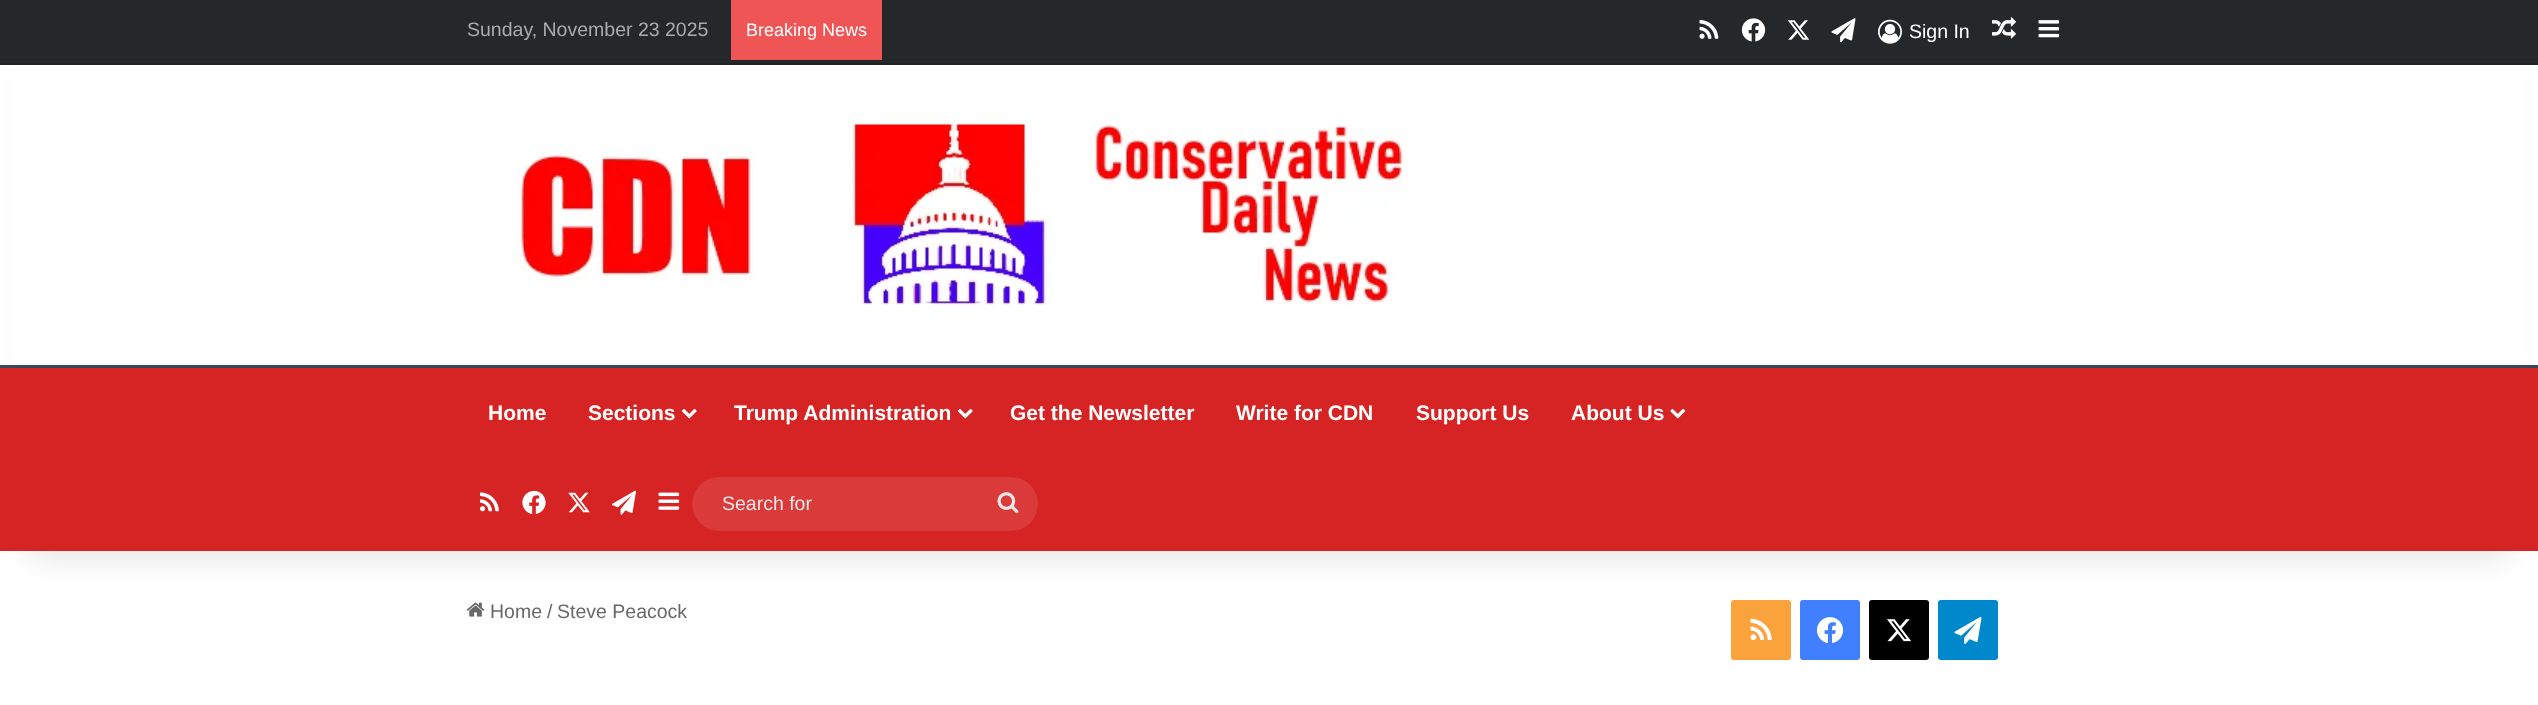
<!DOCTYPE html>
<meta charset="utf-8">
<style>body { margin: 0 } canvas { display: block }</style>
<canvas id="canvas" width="2538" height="705"></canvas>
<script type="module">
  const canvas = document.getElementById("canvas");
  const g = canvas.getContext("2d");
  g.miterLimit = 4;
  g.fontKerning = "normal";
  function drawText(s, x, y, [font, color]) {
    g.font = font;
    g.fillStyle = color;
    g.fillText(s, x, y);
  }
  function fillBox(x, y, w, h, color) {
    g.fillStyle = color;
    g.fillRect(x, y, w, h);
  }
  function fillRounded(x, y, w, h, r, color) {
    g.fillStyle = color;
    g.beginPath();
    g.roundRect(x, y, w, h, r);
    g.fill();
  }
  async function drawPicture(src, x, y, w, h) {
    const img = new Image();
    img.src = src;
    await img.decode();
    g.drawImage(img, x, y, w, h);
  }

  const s1 = ["19.5px Liberation Sans", "#AAAAAA"];
  const s2 = ["18px Liberation Sans", "#FFFFFF"];
  const s3 = ["19.5px Liberation Sans", "#FFFFFF"];
  const s4 = ["bold 21px Liberation Sans", "#FFFFFF"];
  const s5 = ["19.5px Liberation Sans", "#E8E8E8"];
  const s6 = ["19.5px Liberation Sans", "#686868"];

  fillBox(0, 0, 2538, 705, "#FFFFFF");
  await drawPicture("pic17.png", 466, 602, 19, 15);
  fillRounded(1731, 600, 60, 60, 3, "#FAA33D");
  fillRounded(1800, 600, 60, 60, 3, "#4080FF");
  fillRounded(1869, 600, 60, 60, 3, "#000000");
  fillRounded(1938, 600, 60, 60, 3, "#0088CC");
  g.fillStyle = "rgba(0, 0, 0, 0.1)";
  g.filter = "blur(15px)";
  g.beginPath();
  g.rect(30, 68, 2478, 490);
  g.fill();
  g.filter = "none";
  fillBox(11, 65, 2516, 300, "#FFFFFF");
  fillBox(0, 0, 2538, 63, "#25282B");
  fillBox(0, 63, 2538, 2, "#212427");
  drawText("Sunday, November 23 2025", 467, 36, s1);
  fillBox(731, 0, 151, 60, "#F05555");
  drawText("Breaking News", 746, 36, s2);
  await drawPicture("pic1.png", 1699, 19, 20, 20);
  await drawPicture("pic2.png", 1741, 18, 25, 24);
  await drawPicture("pic3.png", 1787, 20, 23, 20);
  await drawPicture("pic4.png", 1831, 18, 25, 25);
  await drawPicture("pic5.png", 1878, 19, 24, 25);
  drawText("Sign In", 1909, 38, s3);
  await drawPicture("pic6.png", 1992, 17, 24, 22);
  await drawPicture("pic7.png", 2038, 20, 22, 18);
  await drawPicture("pic8.png", 514, 124, 890, 181);
  fillBox(0, 368, 2538, 183, "#D62424");
  fillBox(0, 365, 2538, 3, "#34495E");
  drawText("Home", 488, 420, s4);
  drawText("Sections", 588, 420, s4);
  await drawPicture("pic9.png", 681, 408, 16, 11);
  drawText("Trump Administration", 734, 420, s4);
  await drawPicture("pic9.png", 957, 408, 16, 11);
  drawText("Get the Newsletter", 1010, 420, s4);
  drawText("Write for CDN", 1236, 420, s4);
  drawText("Support Us", 1416, 420, s4);
  drawText("About Us", 1571, 420, s4);
  await drawPicture("pic10.png", 1670, 408, 16, 11);
  await drawPicture("pic11.png", 480, 492, 19, 20);
  await drawPicture("pic12.png", 522, 490, 24, 24);
  await drawPicture("pic13.png", 568, 492, 22, 21);
  await drawPicture("pic14.png", 612, 490, 24, 25);
  await drawPicture("pic15.png", 658, 492, 22, 18);
  fillRounded(692, 477, 346, 54, 27, "#DA3A3A");
  drawText("Search for", 722, 510, s5);
  await drawPicture("pic16.png", 997, 492, 22, 22);
  drawText("Home", 490, 618, s6);
  drawText("/", 547, 618, s6);
  drawText("Steve Peacock", 557, 618, s6);
  await drawPicture("pic18.png", 1750, 618, 22, 23);
  await drawPicture("pic19.png", 1816, 617, 28, 27);
  await drawPicture("pic20.png", 1887, 619, 24, 23);
  await drawPicture("pic21.png", 1954, 616, 28, 28);
</script>
